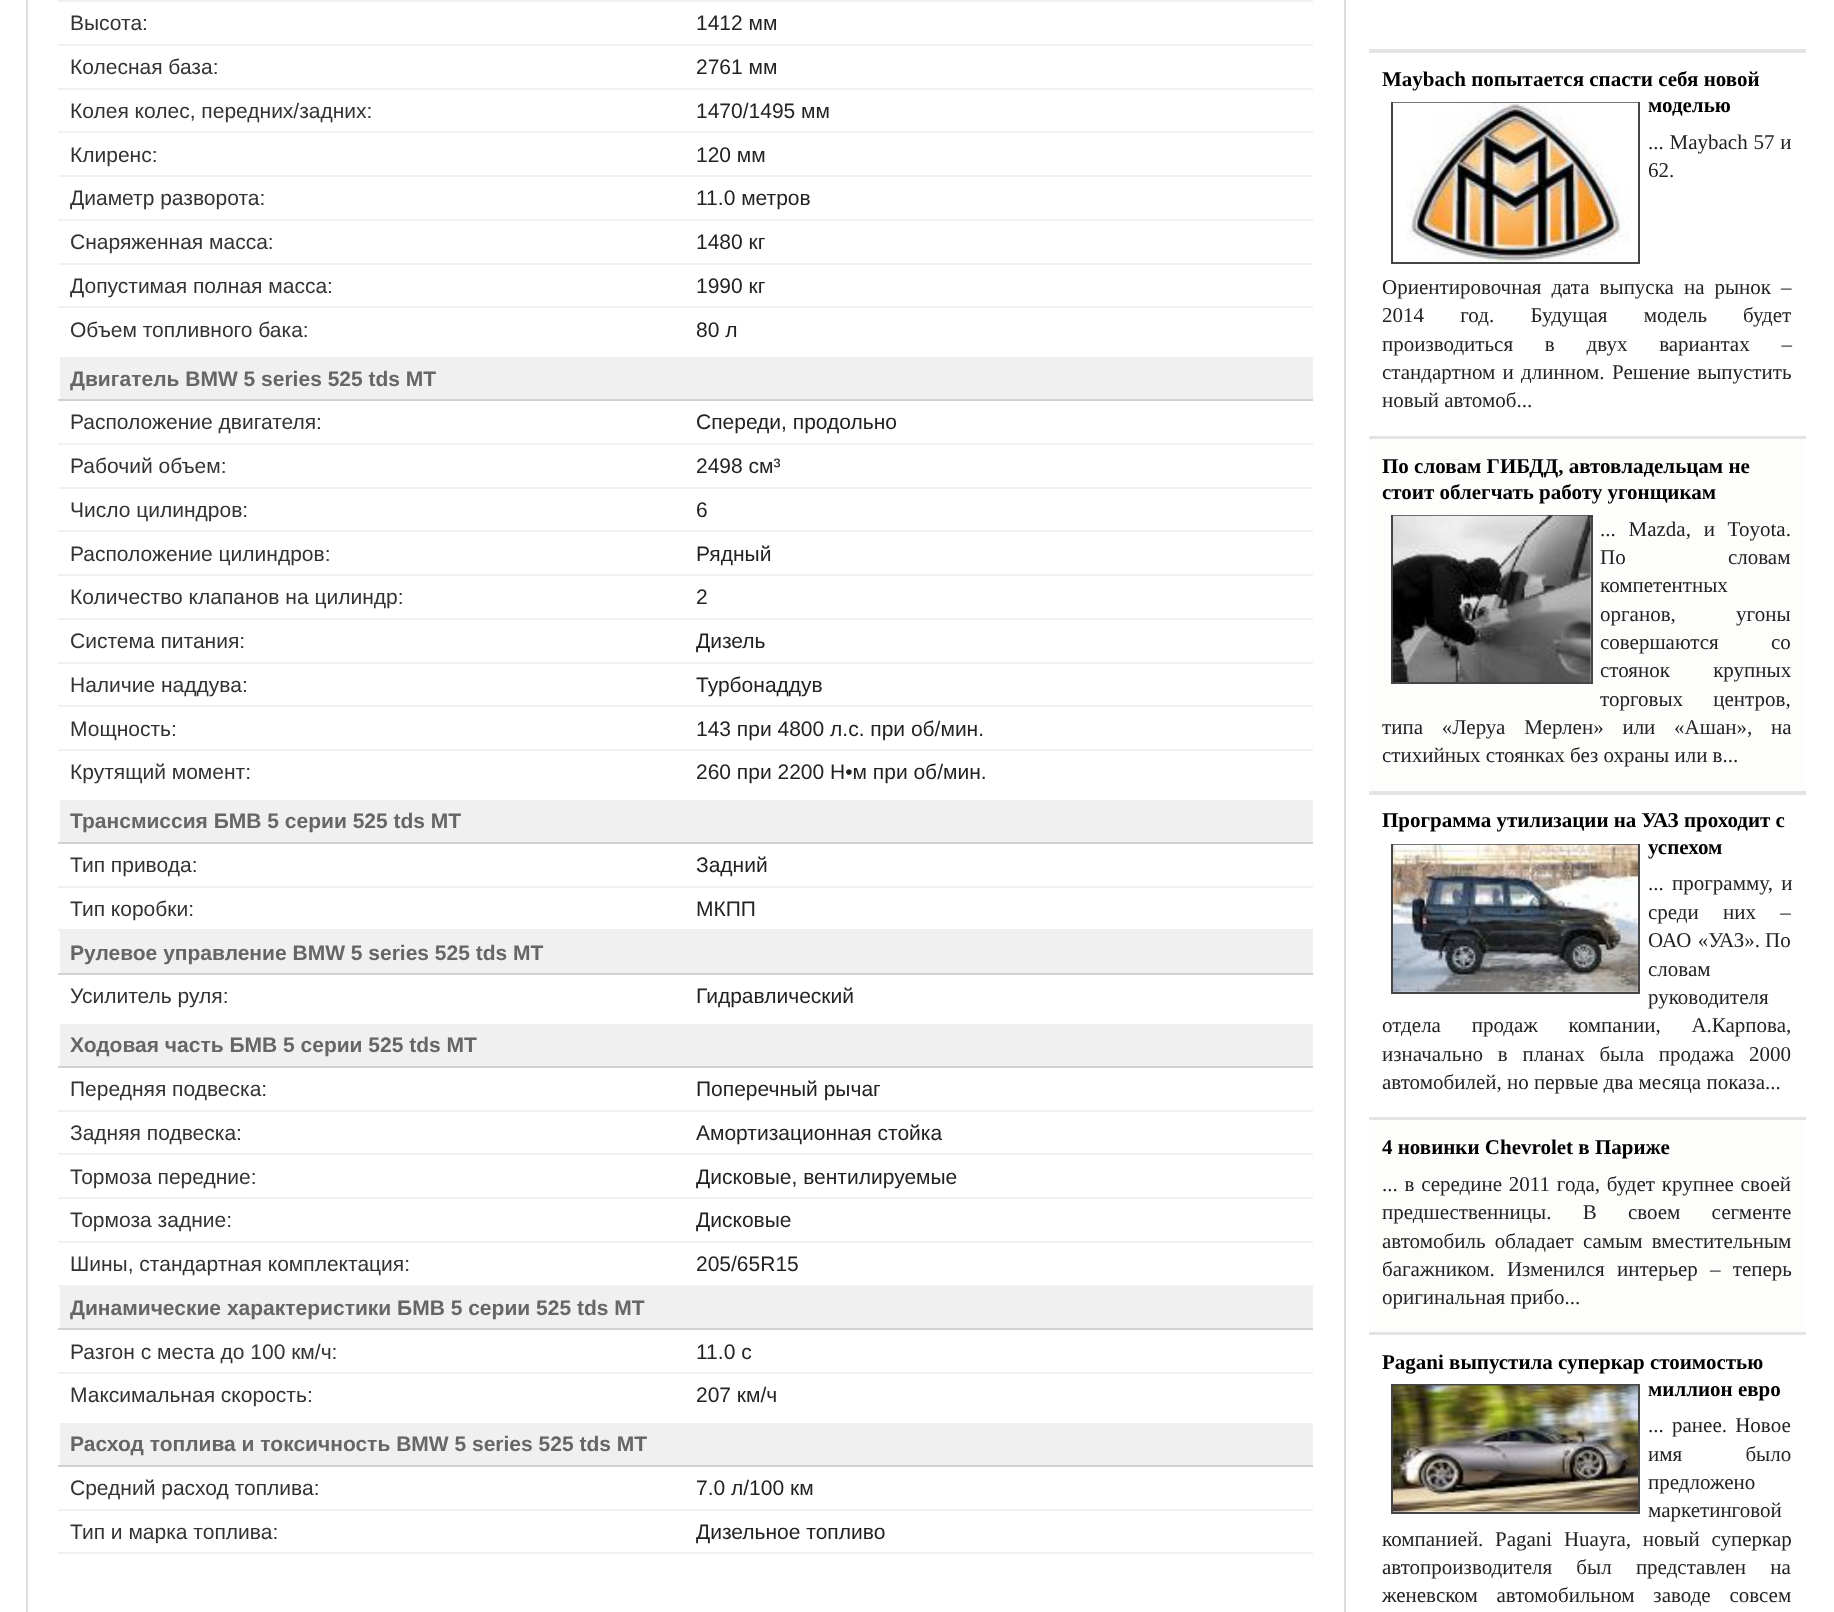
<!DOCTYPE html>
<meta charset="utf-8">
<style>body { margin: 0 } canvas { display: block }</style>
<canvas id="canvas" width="1834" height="1612"></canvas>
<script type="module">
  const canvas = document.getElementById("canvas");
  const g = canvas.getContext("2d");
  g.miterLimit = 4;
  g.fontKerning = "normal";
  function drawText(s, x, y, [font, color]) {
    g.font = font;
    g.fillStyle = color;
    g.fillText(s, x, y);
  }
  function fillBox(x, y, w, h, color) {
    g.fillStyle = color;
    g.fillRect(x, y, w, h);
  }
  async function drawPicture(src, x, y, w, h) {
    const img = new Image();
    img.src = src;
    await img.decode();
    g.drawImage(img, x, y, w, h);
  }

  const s1 = ["21px Liberation Sans", "#333333"];
  const s2 = ["21px Liberation Sans", "#222222"];
  const s3 = ["bold 21px Liberation Sans", "#666666"];
  const s4 = ["bold 21px Liberation Serif", "#000000"];
  const s5 = ["21px Liberation Serif", "#222222"];

  fillBox(0, 0, 1834, 1612, "#FFFFFF");
  g.strokeStyle = "#DDDDDD";
  g.lineWidth = 2;
  g.strokeRect(27, -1, 1318, 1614);
  fillBox(58, 0, 1255, 2, "#F1F1F1");
  drawText("Высота:", 70, 30, s1);
  fillBox(58, 44, 1255, 2, "#F1F1F1");
  drawText("1412 мм", 696, 30, s2);
  drawText("Колесная база:", 70, 74, s1);
  fillBox(58, 88, 1255, 2, "#F1F1F1");
  drawText("2761 мм", 696, 74, s2);
  drawText("Колея колес, передних/задних:", 70, 118, s1);
  fillBox(58, 131, 1255, 2, "#F1F1F1");
  drawText("1470/1495 мм", 696, 118, s2);
  drawText("Клиренс:", 70, 162, s1);
  fillBox(58, 175, 1255, 2, "#F1F1F1");
  drawText("120 мм", 696, 162, s2);
  drawText("Диаметр разворота:", 70, 205, s1);
  fillBox(58, 219, 1255, 2, "#F1F1F1");
  drawText("11.0 метров", 696, 205, s2);
  drawText("Снаряженная масса:", 70, 249, s1);
  fillBox(58, 263, 1255, 2, "#F1F1F1");
  drawText("1480 кг", 696, 249, s2);
  drawText("Допустимая полная масса:", 70, 293, s1);
  fillBox(58, 306, 1255, 2, "#F1F1F1");
  drawText("1990 кг", 696, 293, s2);
  drawText("Объем топливного бака:", 70, 337, s1);
  drawText("80 л", 696, 337, s2);
  fillBox(60, 357, 1253, 42, "#F0F0F0");
  fillBox(58, 399, 1255, 2, "#D1D1D1");
  drawText("Двигатель BMW 5 series 525 tds MT", 70, 386, s3);
  drawText("Расположение двигателя:", 70, 429, s1);
  fillBox(58, 443, 1255, 2, "#F1F1F1");
  drawText("Спереди, продольно", 696, 429, s2);
  drawText("Рабочий объем:", 70, 473, s1);
  fillBox(58, 487, 1255, 2, "#F1F1F1");
  drawText("2498 см³", 696, 473, s2);
  drawText("Число цилиндров:", 70, 517, s1);
  fillBox(58, 530, 1255, 2, "#F1F1F1");
  drawText("6", 696, 517, s2);
  drawText("Расположение цилиндров:", 70, 561, s1);
  fillBox(58, 574, 1255, 2, "#F1F1F1");
  drawText("Рядный", 696, 561, s2);
  drawText("Количество клапанов на цилиндр:", 70, 604, s1);
  fillBox(58, 618, 1255, 2, "#F1F1F1");
  drawText("2", 696, 604, s2);
  drawText("Система питания:", 70, 648, s1);
  fillBox(58, 662, 1255, 2, "#F1F1F1");
  drawText("Дизель", 696, 648, s2);
  drawText("Наличие наддува:", 70, 692, s1);
  fillBox(58, 705, 1255, 2, "#F1F1F1");
  drawText("Турбонаддув", 696, 692, s2);
  drawText("Мощность:", 70, 736, s1);
  fillBox(58, 749, 1255, 2, "#F1F1F1");
  drawText("143 при 4800 л.с. при об/мин.", 696, 736, s2);
  drawText("Крутящий момент:", 70, 779, s1);
  drawText("260 при 2200 Н•м при об/мин.", 696, 779, s2);
  fillBox(60, 800, 1253, 42, "#F0F0F0");
  fillBox(58, 842, 1255, 2, "#D1D1D1");
  drawText("Трансмиссия БМВ 5 серии 525 tds MT", 70, 828, s3);
  drawText("Тип привода:", 70, 872, s1);
  fillBox(58, 886, 1255, 2, "#F1F1F1");
  drawText("Задний", 696, 872, s2);
  drawText("Тип коробки:", 70, 916, s1);
  fillBox(58, 929, 1255, 2, "#F1F1F1");
  drawText("МКПП", 696, 916, s2);
  fillBox(60, 931, 1253, 42, "#F0F0F0");
  fillBox(58, 973, 1255, 2, "#D1D1D1");
  drawText("Рулевое управление BMW 5 series 525 tds MT", 70, 960, s3);
  drawText("Усилитель руля:", 70, 1003, s1);
  drawText("Гидравлический", 696, 1003, s2);
  fillBox(60, 1024, 1253, 42, "#F0F0F0");
  fillBox(58, 1066, 1255, 2, "#D1D1D1");
  drawText("Ходовая часть БМВ 5 серии 525 tds MT", 70, 1052, s3);
  drawText("Передняя подвеска:", 70, 1096, s1);
  fillBox(58, 1110, 1255, 2, "#F1F1F1");
  drawText("Поперечный рычаг", 696, 1096, s2);
  drawText("Задняя подвеска:", 70, 1140, s1);
  fillBox(58, 1153, 1255, 2, "#F1F1F1");
  drawText("Амортизационная стойка", 696, 1140, s2);
  drawText("Тормоза передние:", 70, 1184, s1);
  fillBox(58, 1197, 1255, 2, "#F1F1F1");
  drawText("Дисковые, вентилируемые", 696, 1184, s2);
  drawText("Тормоза задние:", 70, 1227, s1);
  fillBox(58, 1241, 1255, 2, "#F1F1F1");
  drawText("Дисковые", 696, 1227, s2);
  drawText("Шины, стандартная комплектация:", 70, 1271, s1);
  fillBox(58, 1285, 1255, 2, "#F1F1F1");
  drawText("205/65R15", 696, 1271, s2);
  fillBox(60, 1287, 1253, 41, "#F0F0F0");
  fillBox(58, 1328, 1255, 2, "#D1D1D1");
  drawText("Динамические характеристики БМВ 5 серии 525 tds MT", 70, 1315, s3);
  drawText("Разгон с места до 100 км/ч:", 70, 1359, s1);
  fillBox(58, 1372, 1255, 2, "#F1F1F1");
  drawText("11.0 с", 696, 1359, s2);
  drawText("Максимальная скорость:", 70, 1402, s1);
  drawText("207 км/ч", 696, 1402, s2);
  fillBox(60, 1423, 1253, 42, "#F0F0F0");
  fillBox(58, 1465, 1255, 2, "#D1D1D1");
  drawText("Расход топлива и токсичность BMW 5 series 525 tds MT", 70, 1451, s3);
  drawText("Средний расход топлива:", 70, 1495, s1);
  fillBox(58, 1509, 1255, 2, "#F1F1F1");
  drawText("7.0 л/100 км", 696, 1495, s2);
  drawText("Тип и марка топлива:", 70, 1539, s1);
  fillBox(58, 1552, 1255, 2, "#F1F1F1");
  drawText("Дизельное топливо", 696, 1539, s2);
  fillBox(1369, 49, 437, 4, "#E4E4E4");
  fillBox(1369, 436, 437, 3, "#E4E4E4");
  drawText("Maybach попытается спасти себя новой", 1382, 86, s4);
  g.strokeStyle = "#454545";
  g.strokeRect(1392, 103, 247, 160);
  await drawPicture("pic1.png", 1393, 102, 245, 160);
  drawText("моделью", 1648, 112, s4);
  g.wordSpacing = "0.5px";
  drawText("... Maybach 57 и", 1648, 149, s5);
  g.wordSpacing = "0px";
  drawText("62.", 1648, 177, s5);
  g.wordSpacing = "4.75px";
  drawText("Ориентировочная дата выпуска на рынок –", 1382, 294, s5);
  g.wordSpacing = "31px";
  drawText("2014 год. Будущая модель", 1382, 322, s5);
  g.wordSpacing = "0px";
  drawText("будет", 1743, 322, s5);
  g.wordSpacing = "26.5px";
  drawText("производиться в двух вариантах –", 1382, 351, s5);
  g.wordSpacing = "2px";
  drawText("стандартном и длинном.", 1382, 379, s5);
  drawText("Решение выпустить", 1612, 379, s5);
  g.wordSpacing = "0px";
  drawText("новый автомоб...", 1382, 407, s5);
  fillBox(1369, 439, 437, 352, "#FDFDFB");
  fillBox(1369, 791, 437, 4, "#E4E4E4");
  drawText("По словам ГИБДД, автовладельцам не", 1382, 473, s4);
  drawText("стоит облегчать работу угонщикам", 1382, 499, s4);
  g.strokeRect(1392, 516, 200, 167);
  await drawPicture("pic2.png", 1393, 515, 198, 167);
  g.wordSpacing = "7.5px";
  drawText("... Mazda, и Toyota.", 1600, 536, s5);
  g.wordSpacing = "97px";
  drawText("По словам", 1600, 564, s5);
  g.wordSpacing = "0px";
  drawText("компетентных", 1600, 592, s5);
  g.wordSpacing = "55px";
  drawText("органов, угоны", 1600, 621, s5);
  g.wordSpacing = "47px";
  drawText("совершаются со", 1600, 649, s5);
  g.wordSpacing = "38px";
  drawText("стоянок крупных", 1600, 677, s5);
  g.wordSpacing = "25px";
  drawText("торговых центров,", 1600, 706, s5);
  g.wordSpacing = "13.5px";
  drawText("типа «Леруа Мерлен» или «Ашан», на", 1382, 734, s5);
  g.wordSpacing = "0px";
  drawText("стихийных стоянках без охраны или в...", 1382, 762, s5);
  fillBox(1369, 1117, 437, 3, "#E4E4E4");
  drawText("Программа утилизации на УАЗ проходит с", 1382, 827, s4);
  g.strokeRect(1392, 845, 247, 148);
  await drawPicture("pic3.png", 1393, 844, 245, 148);
  drawText("успехом", 1648, 854, s4);
  g.wordSpacing = "3px";
  drawText("... программу, и", 1648, 890, s5);
  g.wordSpacing = "19px";
  drawText("среди них –", 1648, 919, s5);
  g.wordSpacing = "1px";
  drawText("ОАО «УАЗ».", 1648, 947, s5);
  g.wordSpacing = "0px";
  drawText("По", 1765, 947, s5);
  drawText("словам", 1648, 976, s5);
  drawText("руководителя", 1648, 1004, s5);
  g.wordSpacing = "25.5px";
  drawText("отдела продаж компании, А.Карпова,", 1382, 1032, s5);
  g.wordSpacing = "9.5px";
  drawText("изначально в планах была продажа 2000", 1382, 1061, s5);
  g.wordSpacing = "0px";
  drawText("автомобилей, но первые два месяца показа...", 1382, 1089, s5);
  fillBox(1369, 1120, 437, 212, "#FDFDFB");
  fillBox(1369, 1332, 437, 3, "#E4E4E4");
  drawText("4 новинки Chevrolet в Париже", 1382, 1154, s4);
  g.wordSpacing = "1.5px";
  drawText("... в середине 2011 года, будет крупнее своей", 1382, 1191, s5);
  g.wordSpacing = "26px";
  drawText("предшественницы. В своем сегменте", 1382, 1219, s5);
  g.wordSpacing = "4px";
  drawText("автомобиль обладает самым вместительным", 1382, 1248, s5);
  g.wordSpacing = "7px";
  drawText("багажником. Изменился интерьер – теперь", 1382, 1276, s5);
  g.wordSpacing = "0px";
  drawText("оригинальная прибо...", 1382, 1304, s5);
  drawText("Pagani выпустила суперкар стоимостью", 1382, 1369, s4);
  g.strokeRect(1392, 1385, 247, 128);
  await drawPicture("pic4.png", 1393, 1385, 245, 127);
  drawText("миллион евро", 1648, 1396, s4);
  g.wordSpacing = "3px";
  drawText("... ранее. Новое", 1648, 1432, s5);
  g.wordSpacing = "58px";
  drawText("имя было", 1648, 1461, s5);
  g.wordSpacing = "0px";
  drawText("предложено", 1648, 1489, s5);
  drawText("маркетинговой", 1648, 1517, s5);
  drawText("компанией.", 1382, 1546, s5);
  g.wordSpacing = "6.5px";
  drawText("Pagani Huayra, новый суперкар", 1495, 1546, s5);
  g.wordSpacing = "19px";
  drawText("автопроизводителя был представлен на", 1382, 1574, s5);
  g.wordSpacing = "13.5px";
  drawText("женевском автомобильном заводе совсем", 1382, 1602, s5);
</script>
